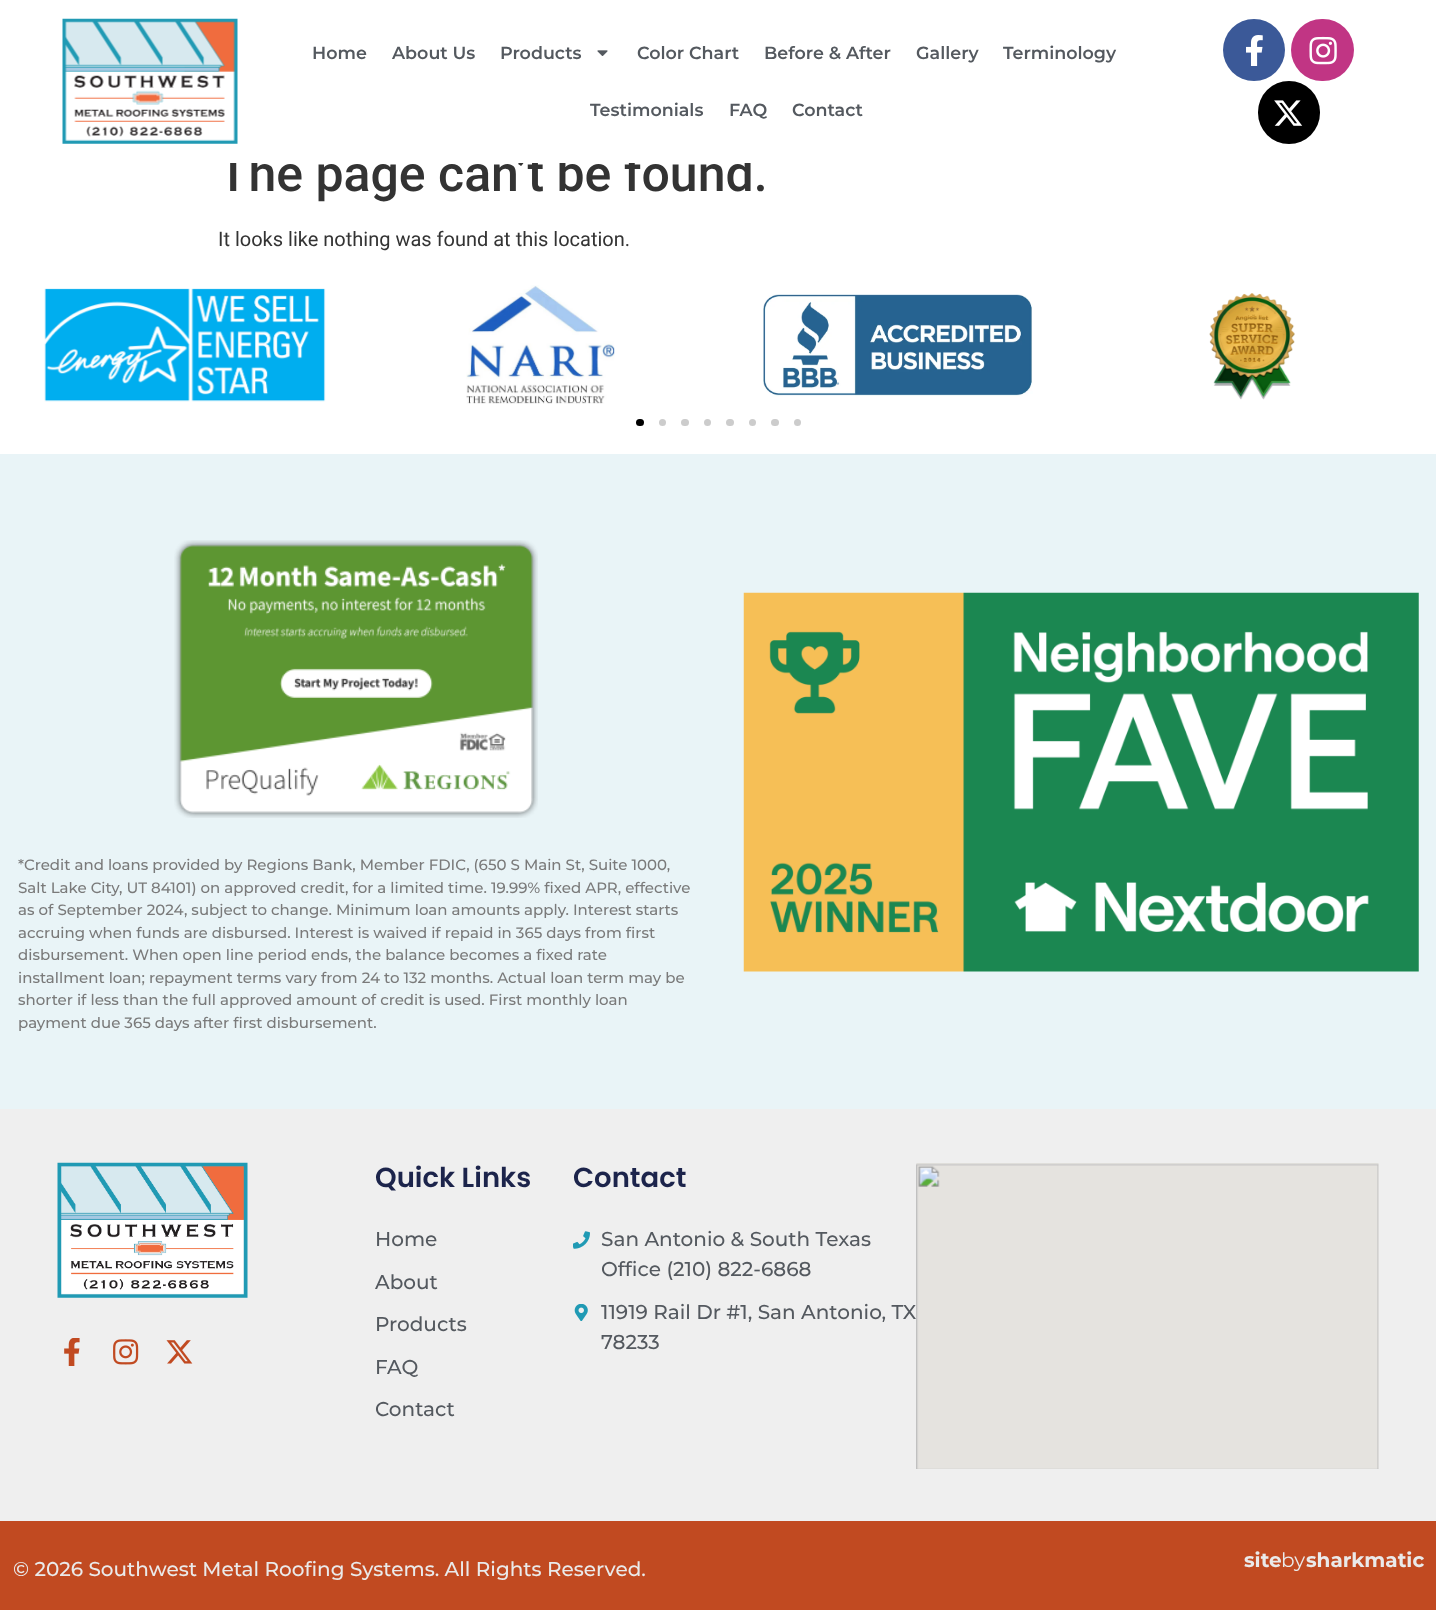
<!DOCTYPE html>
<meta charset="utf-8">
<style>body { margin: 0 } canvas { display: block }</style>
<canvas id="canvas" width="1436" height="1610"></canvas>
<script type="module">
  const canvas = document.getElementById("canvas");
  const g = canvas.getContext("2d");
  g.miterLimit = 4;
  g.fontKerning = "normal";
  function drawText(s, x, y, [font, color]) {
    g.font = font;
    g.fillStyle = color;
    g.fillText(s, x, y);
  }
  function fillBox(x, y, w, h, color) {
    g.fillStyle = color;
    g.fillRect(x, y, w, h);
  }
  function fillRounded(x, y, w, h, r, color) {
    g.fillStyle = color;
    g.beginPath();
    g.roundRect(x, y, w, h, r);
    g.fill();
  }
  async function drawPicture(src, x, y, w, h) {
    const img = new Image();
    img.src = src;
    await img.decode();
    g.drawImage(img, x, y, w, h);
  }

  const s1 = ["500 50px Roboto", "#333333"];
  const s2 = ["600 17.5px Montserrat", "#54595F"];
  const s3 = ["20px Roboto", "#333333"];
  const s4 = ["500 15px Montserrat", "#7A7A7A"];
  const s5 = ["600 27.5px Poppins", "#1C244B"];
  const s6 = ["500 20px Montserrat", "#54595F"];
  const s7 = ["500 20px Montserrat", "#EAEAEA"];
  const s8 = ["bold 20px Montserrat", "#EAEAEA"];
  const s9 = ["20px Montserrat", "#EAEAEA"];

  fillBox(0, 0, 1436, 1610, "#FFFFFF");
  drawText("The page can’t be found.", 218, 191, s1);
  fillBox(219, 153, 532, 10, "#FFFFFF");
  await drawPicture("pic1.png", 62, 18, 176, 126);
  drawText("Home", 312, 59, s2);
  drawText("About Us", 392, 59, s2);
  drawText("Products", 500, 59, s2);
  await drawPicture("pic2.png", 597, 50, 11, 6);
  drawText("Color Chart", 637, 59, s2);
  drawText("Before & After", 764, 59, s2);
  drawText("Gallery", 916, 59, s2);
  drawText("Terminology", 1003, 59, s2);
  drawText("Testimonials", 590, 116, s2);
  drawText("FAQ", 729, 116, s2);
  drawText("Contact", 792, 116, s2);
  g.fillStyle = "#3B5998";
  g.beginPath();
  g.arc(1254, 50, 31, 0, Math.PI * 2);
  g.fill();
  await drawPicture("pic3.png", 1246, 35, 17, 31);
  fillRounded(1291, 19, 63, 62, 31, "#C13584");
  await drawPicture("pic4.png", 1309, 36, 28, 29);
  fillRounded(1258, 81, 62, 63, 31, "#000000");
  await drawPicture("pic5.png", 1274, 100, 29, 26);
  drawText("It looks like nothing was found at this location.", 218, 246, s3);
  await drawPicture("pic6.png", 44, 288, 282, 114);
  await drawPicture("pic7.png", 466, 285, 149, 119);
  await drawPicture("pic8.png", 763, 294, 270, 103);
  await drawPicture("pic9.png", 1209, 293, 86, 107);
  fillRounded(636, 419, 8, 7, 3.5, "#000000");
  g.fillStyle = "#CCCCCC";
  g.beginPath();
  g.arc(662.5, 422.5, 3.5, 0, Math.PI * 2);
  g.fill();
  fillRounded(681, 419, 8, 7, 3.5, "#CCCCCC");
  g.beginPath();
  g.arc(707.5, 422.5, 3.5, 0, Math.PI * 2);
  g.fill();
  fillRounded(726, 419, 8, 7, 3.5, "#CCCCCC");
  g.beginPath();
  g.arc(752.5, 422.5, 3.5, 0, Math.PI * 2);
  g.fill();
  fillRounded(771, 419, 8, 7, 3.5, "#CCCCCC");
  g.beginPath();
  g.arc(797.5, 422.5, 3.5, 0, Math.PI * 2);
  g.fill();
  fillBox(0, 454, 1436, 655, "#E9F4F7");
  await drawPicture("pic10.png", 174, 540, 364, 278);
  drawText("*Credit and loans provided by Regions Bank, Member FDIC, (650 S Main St, Suite 1000,", 18, 870, s4);
  drawText("Salt Lake City, UT 84101) on approved credit, for a limited time. 19.99% fixed APR, effective", 18, 893, s4);
  drawText("as of September 2024, subject to change. Minimum loan amounts apply. Interest starts", 18, 915, s4);
  drawText("accruing when funds are disbursed. Interest is waived if repaid in 365 days from first", 18, 938, s4);
  drawText("disbursement. When open line period ends, the balance becomes a fixed rate", 18, 960, s4);
  drawText("installment loan; repayment terms vary from 24 to 132 months. Actual loan term may be", 18, 983, s4);
  drawText("shorter if less than the full approved amount of credit is used. First monthly loan", 18, 1005, s4);
  drawText("payment due 365 days after first disbursement.", 18, 1028, s4);
  await drawPicture("pic11.png", 743, 592, 676, 380);
  fillBox(0, 1109, 1436, 412, "#EFEFEF");
  await drawPicture("pic12.png", 57, 1162, 191, 136);
  await drawPicture("pic13.png", 64, 1338, 16, 28);
  await drawPicture("pic14.png", 113, 1339, 26, 26);
  await drawPicture("pic15.png", 166, 1340, 27, 24);
  drawText("Quick Links", 375, 1187, s5);
  drawText("Home", 375, 1246, s6);
  drawText("About", 375, 1289, s6);
  drawText("Products", 375, 1331, s6);
  drawText("FAQ", 375, 1374, s6);
  drawText("Contact", 375, 1416, s6);
  drawText("Contact", 573, 1187, s5);
  await drawPicture("pic16.png", 573, 1231, 17, 18);
  drawText("San Antonio & South Texas", 601, 1246, s6);
  drawText("Office (210) 822-6868", 601, 1276, s6);
  await drawPicture("pic17.png", 574, 1304, 14, 17);
  drawText("11919 Rail Dr #1, San Antonio, TX", 601, 1319, s6);
  drawText("78233", 601, 1349, s6);
  await drawPicture("pic18.png", 916, 1163, 463, 306);
  fillBox(0, 1521, 1436, 89, "#C14A21");
  drawText("© 2026 Southwest Metal Roofing Systems. All Rights Reserved.", 13, 1576, s7);
  drawText("site", 1244, 1567, s8);
  drawText("by", 1281, 1567, s9);
  drawText("sharkmatic", 1306, 1567, s8);
</script>
